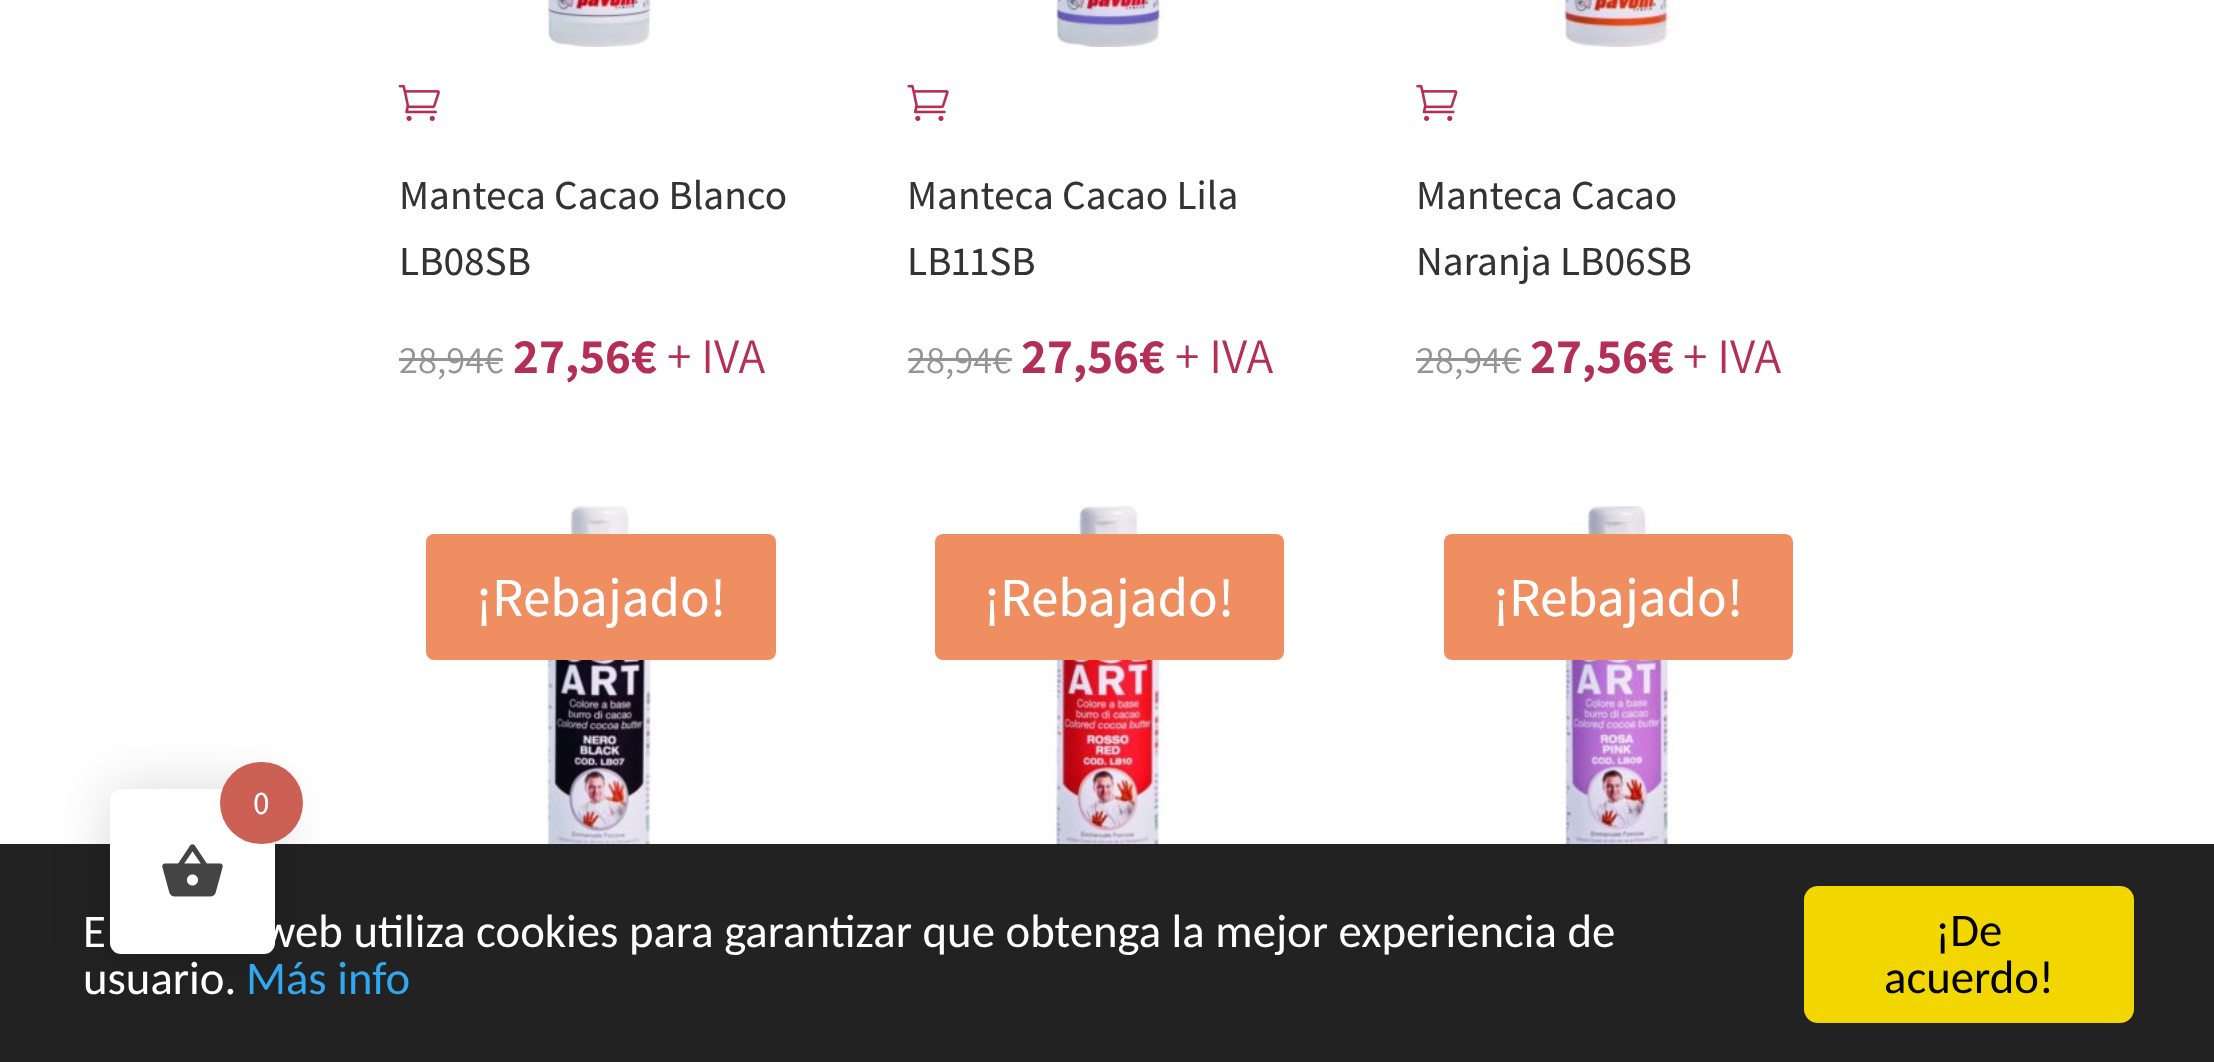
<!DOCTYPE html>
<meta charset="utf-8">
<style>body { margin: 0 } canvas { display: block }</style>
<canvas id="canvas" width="2214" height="1062"></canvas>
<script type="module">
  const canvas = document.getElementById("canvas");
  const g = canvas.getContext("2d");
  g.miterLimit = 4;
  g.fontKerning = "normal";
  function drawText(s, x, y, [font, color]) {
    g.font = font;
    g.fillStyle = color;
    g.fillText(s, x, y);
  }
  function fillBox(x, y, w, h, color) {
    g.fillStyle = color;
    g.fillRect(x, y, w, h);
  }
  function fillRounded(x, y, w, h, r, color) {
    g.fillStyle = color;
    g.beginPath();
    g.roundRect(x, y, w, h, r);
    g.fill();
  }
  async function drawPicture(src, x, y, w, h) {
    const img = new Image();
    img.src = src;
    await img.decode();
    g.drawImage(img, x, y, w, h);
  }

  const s1 = ["500 41.25px Assistant", "#333333"];
  const s2 = ["38.5px Assistant", "#949494"];
  const s3 = ["bold 49.5px Assistant", "#B32F55"];
  const s4 = ["49.5px Assistant", "#B32F55"];
  const s5 = ["500 55px Assistant", "#FFFFFF"];
  const s6 = ["500 33px Assistant", "#FFFFFF"];
  const s7 = ["46.75px Carlito", "#FFFFFF"];
  const s8 = ["46.75px Carlito", "#31A8F0"];
  const s9 = ["46.75px Carlito", "#000000"];

  fillBox(0, 0, 2214, 1062, "#FFFFFF");
  await drawPicture("pic1.png", 547, 0, 109, 47);
  await drawPicture("pic2.png", 398, 84, 42, 37);
  drawText("Manteca Cacao Blanco", 399, 209, s1);
  drawText("LB08SB", 399, 275, s1);
  drawText("28,94€", 399, 373, s2);
  fillBox(399, 358, 104, 3, "#949494");
  drawText("27,56€", 513, 373, s3);
  drawText("+ IVA", 667, 373, s4);
  await drawPicture("pic3.png", 1056, 0, 109, 47);
  await drawPicture("pic4.png", 907, 84, 42, 37);
  drawText("Manteca Cacao Lila", 907, 209, s1);
  drawText("LB11SB", 907, 275, s1);
  drawText("28,94€", 907, 373, s2);
  fillBox(908, 358, 104, 3, "#949494");
  drawText("27,56€", 1021, 373, s3);
  drawText("+ IVA", 1175, 373, s4);
  await drawPicture("pic5.png", 1557, 0, 117, 47);
  await drawPicture("pic6.png", 1416, 84, 42, 37);
  drawText("Manteca Cacao", 1416, 209, s1);
  drawText("Naranja LB06SB", 1416, 275, s1);
  drawText("28,94", 1416, 373, s2);
  fillBox(1416, 358, 86, 3, "#949494");
  drawText("€", 1501, 373, s2);
  fillBox(1502, 358, 19, 3, "#949494");
  drawText("27,56€", 1530, 373, s3);
  drawText("+ IVA", 1683, 373, s4);
  await drawPicture("pic7.png", 545, 506, 111, 338);
  fillRounded(426, 534, 350, 126, 8, "#EF8F61");
  drawText("¡Rebajado!", 476, 616, s5);
  await drawPicture("pic8.png", 1047, 506, 118, 338);
  fillRounded(935, 534, 349, 126, 8, "#EF8F61");
  drawText("¡Rebajado!", 984, 616, s5);
  await drawPicture("pic9.png", 1564, 506, 110, 338);
  fillRounded(1444, 534, 349, 126, 8, "#EF8F61");
  drawText("¡Rebajado!", 1493, 616, s5);
  fillBox(0, 844, 2214, 218, "#222222");
  g.fillStyle = "rgba(0, 0, 0, 0.15)";
  g.filter = "blur(27.5px)";
  g.beginPath();
  g.roundRect(110, 789, 165, 165, 11);
  g.fill();
  g.filter = "none";
  fillRounded(110, 789, 165, 165, 11, "#FFFFFF");
  fillRounded(220, 762, 83, 82, 41, "#CC6055");
  drawText("0", 253, 814, s6);
  await drawPicture("pic10.png", 162, 844, 61, 53);
  drawText("E", 83, 947, s7);
  drawText("web utiliza cookies para garantizar que obtenga la mejor experiencia de", 262, 947, s7);
  drawText("usuario.", 83, 994, s7);
  drawText("Más info", 246, 994, s8);
  fillRounded(1804, 886, 330, 137, 14, "#F1D600");
  drawText("¡De", 1935, 946, s9);
  drawText("acuerdo!", 1884, 993, s9);
</script>
